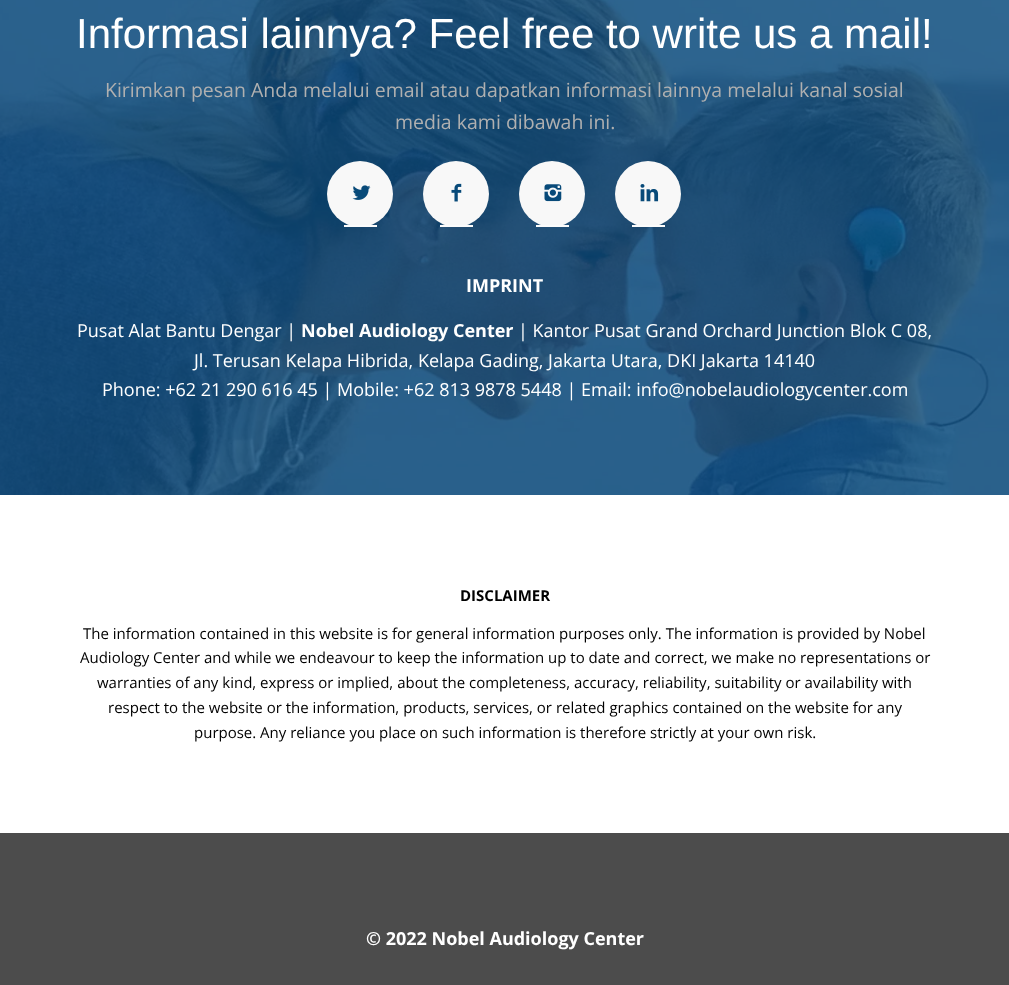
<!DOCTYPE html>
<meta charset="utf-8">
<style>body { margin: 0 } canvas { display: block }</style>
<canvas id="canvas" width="1009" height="985"></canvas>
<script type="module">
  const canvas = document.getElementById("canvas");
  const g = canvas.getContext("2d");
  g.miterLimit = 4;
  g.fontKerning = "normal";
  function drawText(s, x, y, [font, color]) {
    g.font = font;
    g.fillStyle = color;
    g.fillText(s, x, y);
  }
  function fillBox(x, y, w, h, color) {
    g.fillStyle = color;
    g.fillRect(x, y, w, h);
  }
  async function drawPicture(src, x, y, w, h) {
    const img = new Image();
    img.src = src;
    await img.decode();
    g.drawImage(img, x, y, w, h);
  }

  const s1 = ["42px Liberation Sans", "#FFFFFF"];
  const s2 = ["19.5px Open Sans", "#B0B0B0"];
  const s3 = ["bold 18px Open Sans", "#FFFFFF"];
  const s4 = ["18px Open Sans", "#FFFFFF"];
  const s5 = ["bold 15px Open Sans", "#000000"];
  const s6 = ["15px Open Sans", "#000000"];

  fillBox(0, 0, 1009, 985, "#FFFFFF");
  await drawPicture("pic1.png", 0, 0, 1009, 495);
  drawText("Informasi lainnya? Feel free to write us a mail!", 76, 48, s1);
  drawText("Kirimkan pesan Anda melalui email atau dapatkan informasi lainnya melalui kanal sosial", 105, 97, s2);
  drawText("media kami dibawah ini.", 395, 129, s2);
  g.fillStyle = "#F8F8F8";
  g.beginPath();
  g.arc(360, 194, 33, 0, Math.PI * 2);
  g.fill();
  fillBox(344, 225, 33, 2, "#FCFCFC");
  await drawPicture("pic2.png", 352, 185, 19, 15);
  g.fillStyle = "#F8F8F8";
  g.beginPath();
  g.arc(456, 194, 33, 0, Math.PI * 2);
  g.fill();
  fillBox(440, 225, 33, 2, "#FCFCFC");
  await drawPicture("pic3.png", 451, 183, 11, 19);
  g.fillStyle = "#F8F8F8";
  g.beginPath();
  g.arc(552, 194, 33, 0, Math.PI * 2);
  g.fill();
  fillBox(536, 225, 33, 2, "#FCFCFC");
  await drawPicture("pic4.png", 544, 184, 18, 18);
  g.fillStyle = "#F8F8F8";
  g.beginPath();
  g.arc(648, 194, 33, 0, Math.PI * 2);
  g.fill();
  fillBox(632, 225, 33, 2, "#FCFCFC");
  await drawPicture("pic5.png", 640, 184, 19, 18);
  drawText("IMPRINT", 466, 292, s3);
  drawText("Pusat Alat Bantu Dengar |", 77, 337, s4);
  drawText("Nobel Audiology Center", 301, 337, s3);
  drawText("| Kantor Pusat Grand Orchard Junction Blok C 08,", 518, 337, s4);
  drawText("Jl. Terusan Kelapa Hibrida, Kelapa Gading, Jakarta Utara, DKI Jakarta 14140", 194, 367, s4);
  drawText("Phone: +62 21 290 616 45 | Mobile: +62 813 9878 5448 | Email: info@nobelaudiologycenter.com", 102, 396, s4);
  drawText("DISCLAIMER", 460, 601, s5);
  drawText("The information contained in this website is for general information purposes only. The information is provided by Nobel", 83, 639, s6);
  drawText("Audiology Center and while we endeavour to keep the information up to date and correct, we make no representations or", 80, 663, s6);
  drawText("warranties of any kind, express or implied, about the completeness, accuracy, reliability, suitability or availability with", 97, 688, s6);
  drawText("respect to the website or the information, products, services, or related graphics contained on the website for any", 108, 713, s6);
  drawText("purpose. Any reliance you place on such information is therefore strictly at your own risk.", 194, 738, s6);
  fillBox(0, 833, 1009, 152, "#4C4C4C");
  drawText("© 2022 Nobel Audiology Center", 366, 945, s3);
</script>
